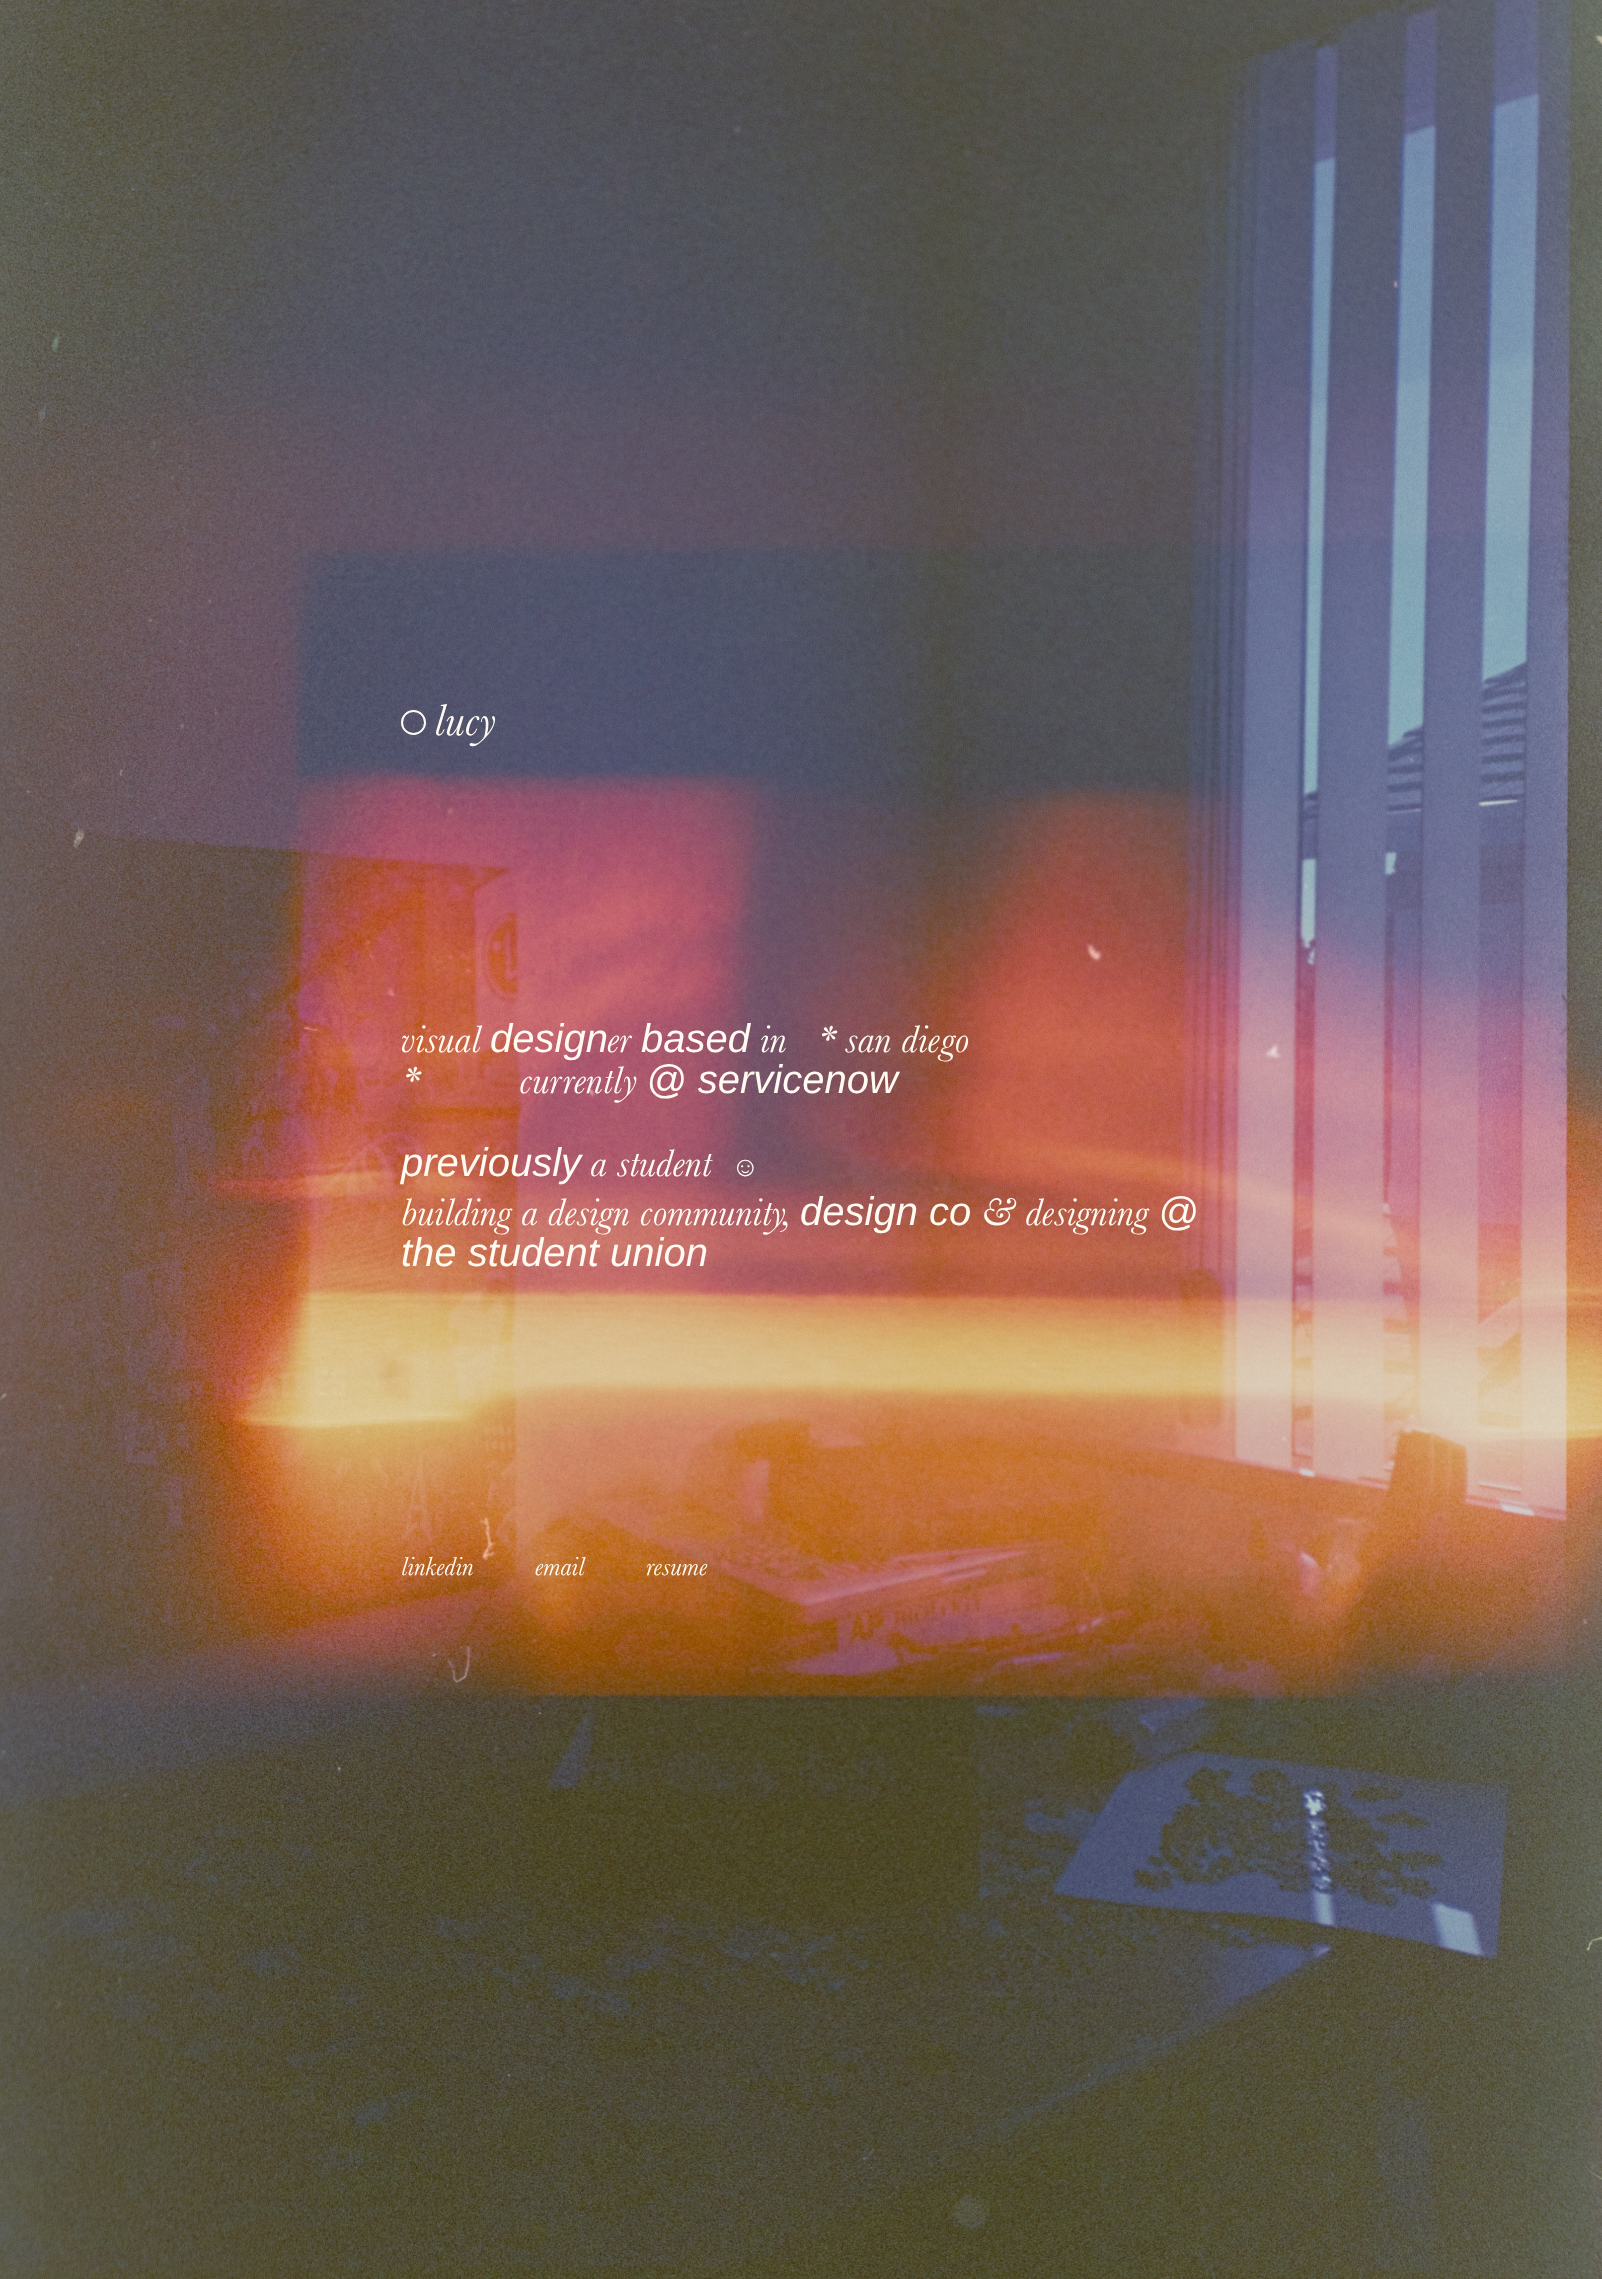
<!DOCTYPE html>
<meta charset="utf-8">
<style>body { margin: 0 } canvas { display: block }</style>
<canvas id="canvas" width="1602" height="2279"></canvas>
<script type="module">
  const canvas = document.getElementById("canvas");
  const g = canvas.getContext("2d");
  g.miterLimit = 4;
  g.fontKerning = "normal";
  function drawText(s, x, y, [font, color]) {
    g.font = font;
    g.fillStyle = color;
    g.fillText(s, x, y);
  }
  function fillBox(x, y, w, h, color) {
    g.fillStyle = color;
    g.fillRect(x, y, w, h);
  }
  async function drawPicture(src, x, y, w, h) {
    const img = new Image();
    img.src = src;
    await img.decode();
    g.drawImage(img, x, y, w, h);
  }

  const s1 = ["italic 46px Baskerville", "#FFFBF3"];
  const s2 = ["italic 40px Baskerville", "#FFFBF3"];
  const s3 = ["italic 40px Liberation Sans", "#FFFBF3"];
  const s4 = ["italic 28px Liberation Sans", "#FFFBF3"];
  const s5 = ["italic 27px Baskerville", "#FFFBF3"];

  fillBox(0, 0, 1602, 2279, "#FFFFFF");
  await drawPicture("pic1.png", 0, 0, 1602, 2279);
  g.beginPath();
  g.arc(413.5, 722.5, 11.5, 0, Math.PI * 2);
  g.strokeStyle = "#FFFBF3";
  g.lineWidth = 2;
  g.stroke();
  drawText("lucy", 434, 735, s1);
  drawText("visual", 401, 1052, s2);
  drawText("design", 490, 1052, s3);
  drawText("er", 607, 1052, s2);
  drawText("based", 641, 1052, s3);
  drawText("in   * san diego", 760, 1052, s2);
  drawText("*          currently", 401, 1093, s2);
  drawText("@ servicenow", 646, 1093, s3);
  drawText("previously", 401, 1176, s3);
  drawText("a student", 590, 1176, s2);
  drawText("☺", 731, 1176, s4);
  drawText("building a design community,", 401, 1225, s2);
  drawText("design co", 800, 1225, s3);
  drawText("& designing", 981, 1225, s2);
  drawText("@", 1158, 1225, s3);
  drawText("the student union", 401, 1266, s3);
  drawText("linkedin", 401, 1575, s5);
  drawText("email", 535, 1575, s5);
  drawText("resume", 646, 1575, s5);
</script>
